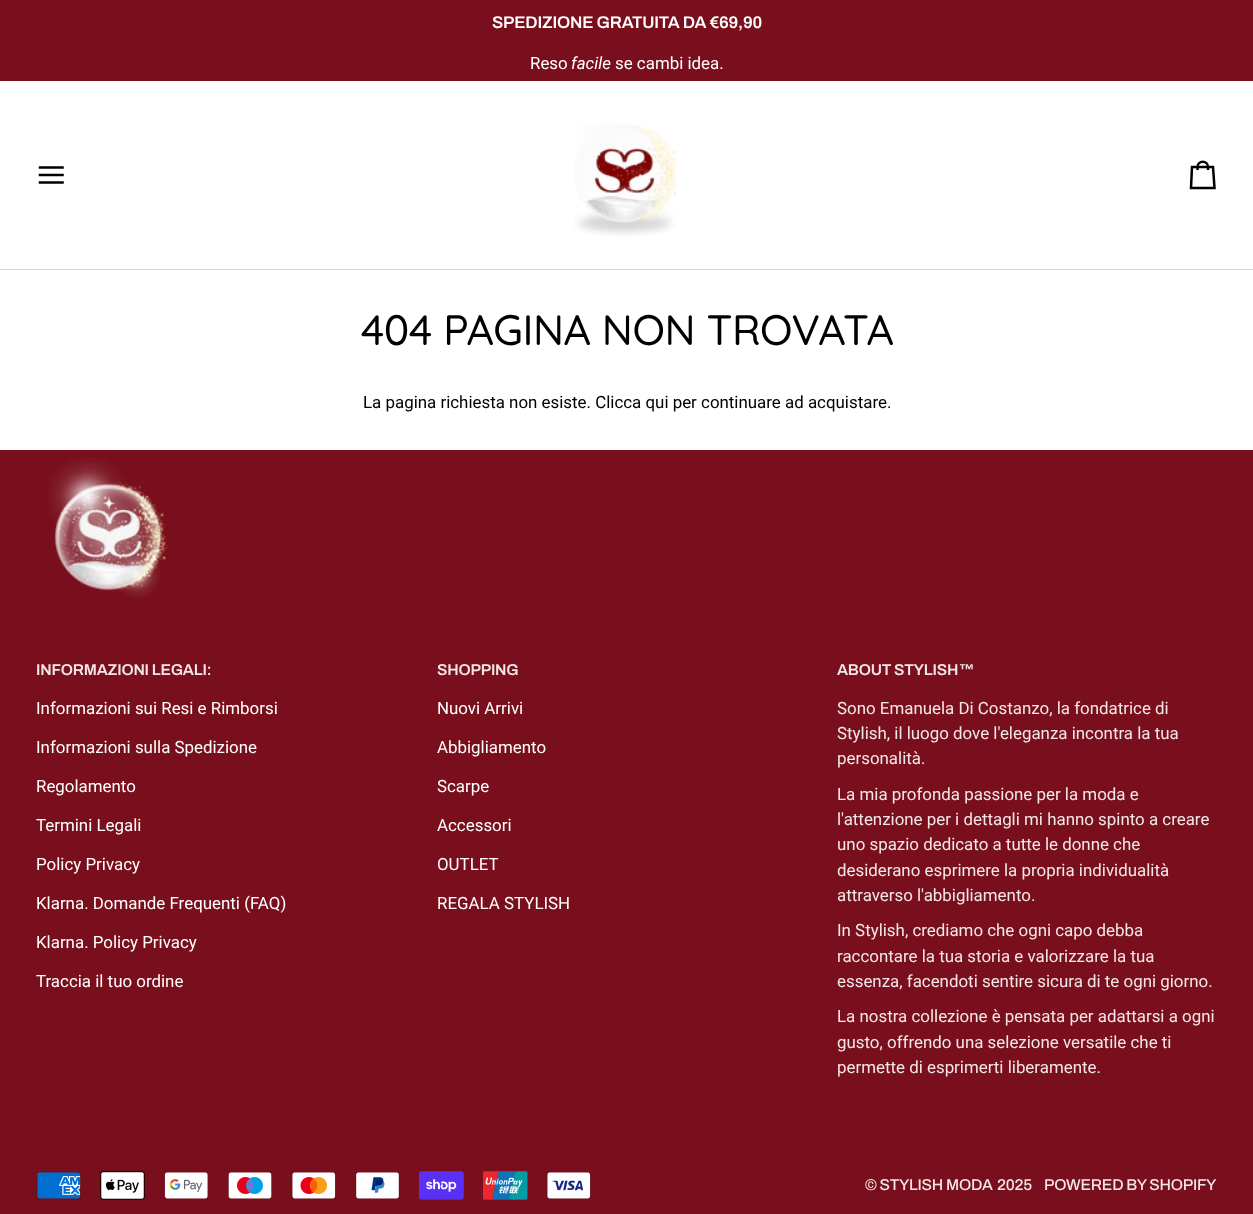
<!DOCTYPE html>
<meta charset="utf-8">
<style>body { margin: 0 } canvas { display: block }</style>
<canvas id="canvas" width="1253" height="1214"></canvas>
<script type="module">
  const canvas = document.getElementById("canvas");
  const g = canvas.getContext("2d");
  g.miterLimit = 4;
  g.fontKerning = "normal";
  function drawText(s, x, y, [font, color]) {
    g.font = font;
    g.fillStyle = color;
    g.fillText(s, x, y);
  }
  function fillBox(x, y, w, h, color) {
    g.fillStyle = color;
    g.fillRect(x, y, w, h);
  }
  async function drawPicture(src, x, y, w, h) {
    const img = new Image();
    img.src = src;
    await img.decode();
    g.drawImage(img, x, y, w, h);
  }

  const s1 = ["600 16.9px Archivo", "#FFFFFF"];
  const s2 = ["16.9px Roboto", "#FFFFFF"];
  const s3 = ["italic 16.9px Roboto", "#FFFFFF"];
  const s4 = ["500 42.5px Quicksand", "#000000"];
  const s5 = ["16.9px Roboto", "#000000"];
  const s6 = ["600 15.6px Archivo", "#F2E7E8"];
  const s7 = ["bold 15.6px Liberation Sans", "#F2E7E8"];
  const s8 = ["16.9px Roboto", "#F2E7E8"];
  const s9 = ["500 15.6px Archivo", "#F2E7E8"];

  fillBox(0, 0, 1253, 1214, "#FFFFFF");
  fillBox(0, 0, 1253, 81, "#790F1C");
  g.letterSpacing = "-0.2px";
  drawText("SPEDIZIONE GRATUITA DA €69,90", 492, 28, s1);
  fillBox(0, 269, 1253, 1, "#D7D7D7");
  g.letterSpacing = "0px";
  drawText("Reso", 530, 69, s2);
  drawText("facile", 571, 69, s3);
  drawText("se cambi idea.", 615, 69, s2);
  g.beginPath();
  g.moveTo(62.5, 167.5);
  g.lineTo(40, 167.5);
  g.moveTo(62.5, 175);
  g.lineTo(40, 175);
  g.moveTo(62.5, 182.5);
  g.lineTo(40, 182.5);
  g.strokeStyle = "#000000";
  g.lineWidth = 2.5;
  g.lineCap = "square";
  g.stroke();
  await drawPicture("pic1.png", 574, 123, 104, 113);
  g.beginPath();
  g.moveTo(1208, 170);
  g.lineTo(1208, 167);
  g.lineTo(1213, 167);
  g.lineTo(1214.5, 188);
  g.lineTo(1191, 188);
  g.lineTo(1192, 167);
  g.lineTo(1197.5, 167);
  g.bezierCurveTo(1197.5, 160, 1208, 160, 1208, 167);
  g.lineTo(1197.5, 167);
  g.lineTo(1197.5, 170);
  g.lineCap = "butt";
  g.stroke();
  g.letterSpacing = "-0.4px";
  drawText("404 PAGINA NON TROVATA", 361, 345, s4);
  g.letterSpacing = "0px";
  drawText("La pagina richiesta non esiste. Clicca qui per continuare ad acquistare.", 363, 408, s5);
  fillBox(0, 450, 1253, 764, "#790F1C");
  await drawPicture("pic2.png", 49, 458, 119, 140);
  g.letterSpacing = "-0.2px";
  drawText("INFORMAZIONI LEGALI:", 36, 675, s6);
  g.letterSpacing = "0px";
  drawText("Informazioni sui Resi e Rimborsi", 36, 714, s2);
  drawText("Informazioni sulla Spedizione", 36, 753, s2);
  drawText("Regolamento", 36, 792, s2);
  drawText("Termini Legali", 36, 831, s2);
  drawText("Policy Privacy", 36, 870, s2);
  drawText("Klarna. Domande Frequenti (FAQ)", 36, 909, s2);
  drawText("Klarna. Policy Privacy", 36, 948, s2);
  drawText("Traccia il tuo ordine", 36, 987, s2);
  g.letterSpacing = "-0.2px";
  drawText("SHOPPING", 437, 675, s6);
  g.letterSpacing = "0px";
  drawText("Nuovi Arrivi", 437, 714, s2);
  drawText("Abbigliamento", 437, 753, s2);
  drawText("Scarpe", 437, 792, s2);
  drawText("Accessori", 437, 831, s2);
  drawText("OUTLET", 437, 870, s2);
  drawText("REGALA STYLISH", 437, 909, s2);
  g.letterSpacing = "-0.2px";
  drawText("ABOUT STYLISH", 837, 675, s6);
  drawText("™", 959, 675, s7);
  g.letterSpacing = "0px";
  drawText("Sono Emanuela Di Costanzo, la fondatrice di", 837, 714, s8);
  drawText("Stylish, il luogo dove l'eleganza incontra la tua", 837, 739, s8);
  drawText("personalità.", 837, 764, s8);
  drawText("La mia profonda passione per la moda e", 837, 800, s8);
  drawText("l'attenzione per i dettagli mi hanno spinto a creare", 837, 825, s8);
  drawText("uno spazio dedicato a tutte le donne che", 837, 850, s8);
  drawText("desiderano esprimere la propria individualità", 837, 876, s8);
  drawText("attraverso l'abbigliamento.", 837, 901, s8);
  drawText("In Stylish, crediamo che ogni capo debba", 837, 936, s8);
  drawText("raccontare la tua storia e valorizzare la tua", 837, 962, s8);
  drawText("essenza, facendoti sentire sicura di te ogni giorno.", 837, 987, s8);
  drawText("La nostra collezione è pensata per adattarsi a ogni", 837, 1022, s8);
  drawText("gusto, offrendo una selezione versatile che ti", 837, 1048, s8);
  drawText("permette di esprimerti liberamente.", 837, 1073, s8);
  await drawPicture("pic3.png", 36, 1171, 45, 29);
  await drawPicture("pic4.png", 100, 1171, 45, 29);
  await drawPicture("pic5.png", 164, 1171, 45, 29);
  await drawPicture("pic6.png", 228, 1171, 45, 29);
  await drawPicture("pic7.png", 291, 1171, 45, 29);
  await drawPicture("pic8.png", 355, 1171, 45, 29);
  await drawPicture("pic9.png", 419, 1171, 45, 29);
  await drawPicture("pic10.png", 483, 1171, 45, 29);
  await drawPicture("pic11.png", 546, 1171, 45, 29);
  g.letterSpacing = "-0.2px";
  drawText("© STYLISH MODA", 865, 1190, s9);
  drawText("2025", 997, 1190, s9);
  drawText("POWERED BY SHOPIFY", 1044, 1190, s9);
</script>
